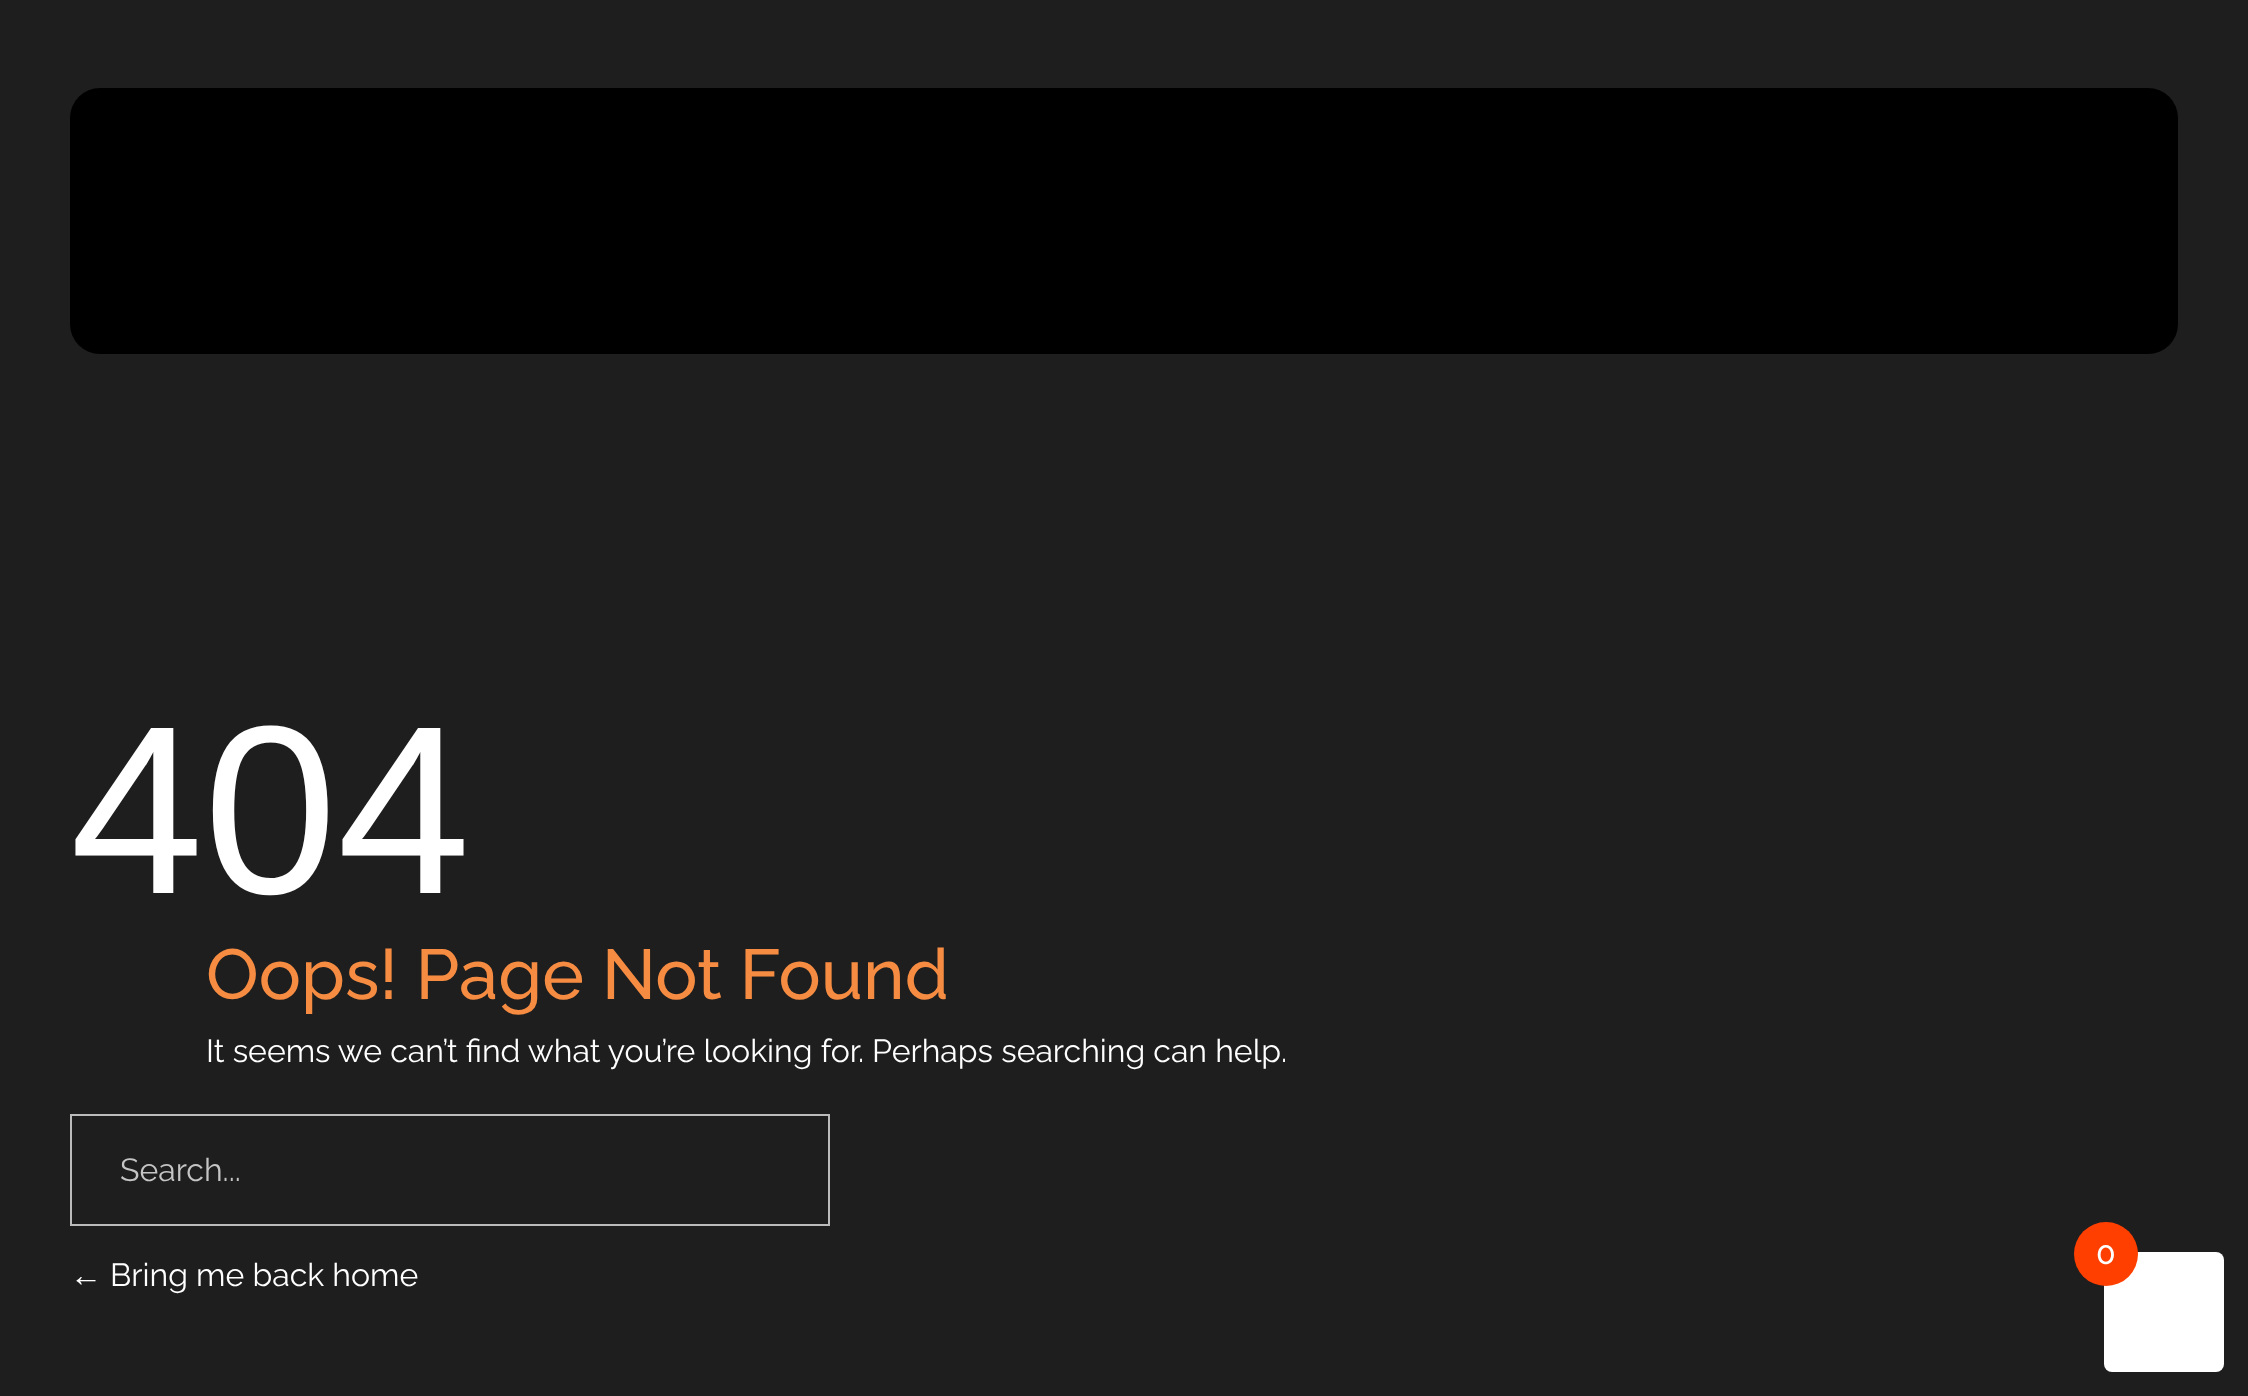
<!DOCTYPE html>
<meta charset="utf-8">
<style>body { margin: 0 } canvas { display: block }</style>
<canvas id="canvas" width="2248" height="1396"></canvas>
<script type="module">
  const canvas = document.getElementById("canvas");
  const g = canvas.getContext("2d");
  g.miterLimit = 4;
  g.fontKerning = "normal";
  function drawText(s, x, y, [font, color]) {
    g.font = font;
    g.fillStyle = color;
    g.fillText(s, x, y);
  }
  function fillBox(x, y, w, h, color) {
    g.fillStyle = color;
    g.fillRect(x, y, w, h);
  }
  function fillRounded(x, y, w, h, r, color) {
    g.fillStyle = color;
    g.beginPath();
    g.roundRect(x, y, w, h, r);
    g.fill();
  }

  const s1 = ["240px Liberation Sans", "#FFFFFF"];
  const s2 = ["500 70.5px Raleway", "#F58C42"];
  const s3 = ["32px Raleway", "#FFFFFF"];
  const s4 = ["32px Raleway", "#C5C5C5"];
  const s5 = ["32px Liberation Sans", "#FFFFFF"];
  const s6 = ["500 32px Raleway", "#FFFFFF"];

  fillBox(0, 0, 2248, 1396, "#1E1E1E");
  fillRounded(70, 88, 2108, 266, 30, "#000000");
  drawText("404", 70, 893, s1);
  drawText("Oops! Page Not Found", 206, 999, s2);
  drawText("It seems we can’t find what you’re looking for. Perhaps searching can help.", 206, 1062, s3);
  g.strokeStyle = "#BBBBBB";
  g.lineWidth = 2;
  g.strokeRect(71, 1115, 758, 110);
  drawText("Search...", 120, 1181, s4);
  drawText("←", 70, 1286, s5);
  drawText("Bring me back home", 110, 1286, s3);
  fillRounded(2104, 1252, 120, 120, 8, "#FFFFFF");
  g.fillStyle = "#FF3F00";
  g.beginPath();
  g.arc(2106, 1254, 32, 0, Math.PI * 2);
  g.fill();
  drawText("0", 2096, 1264, s6);
</script>
